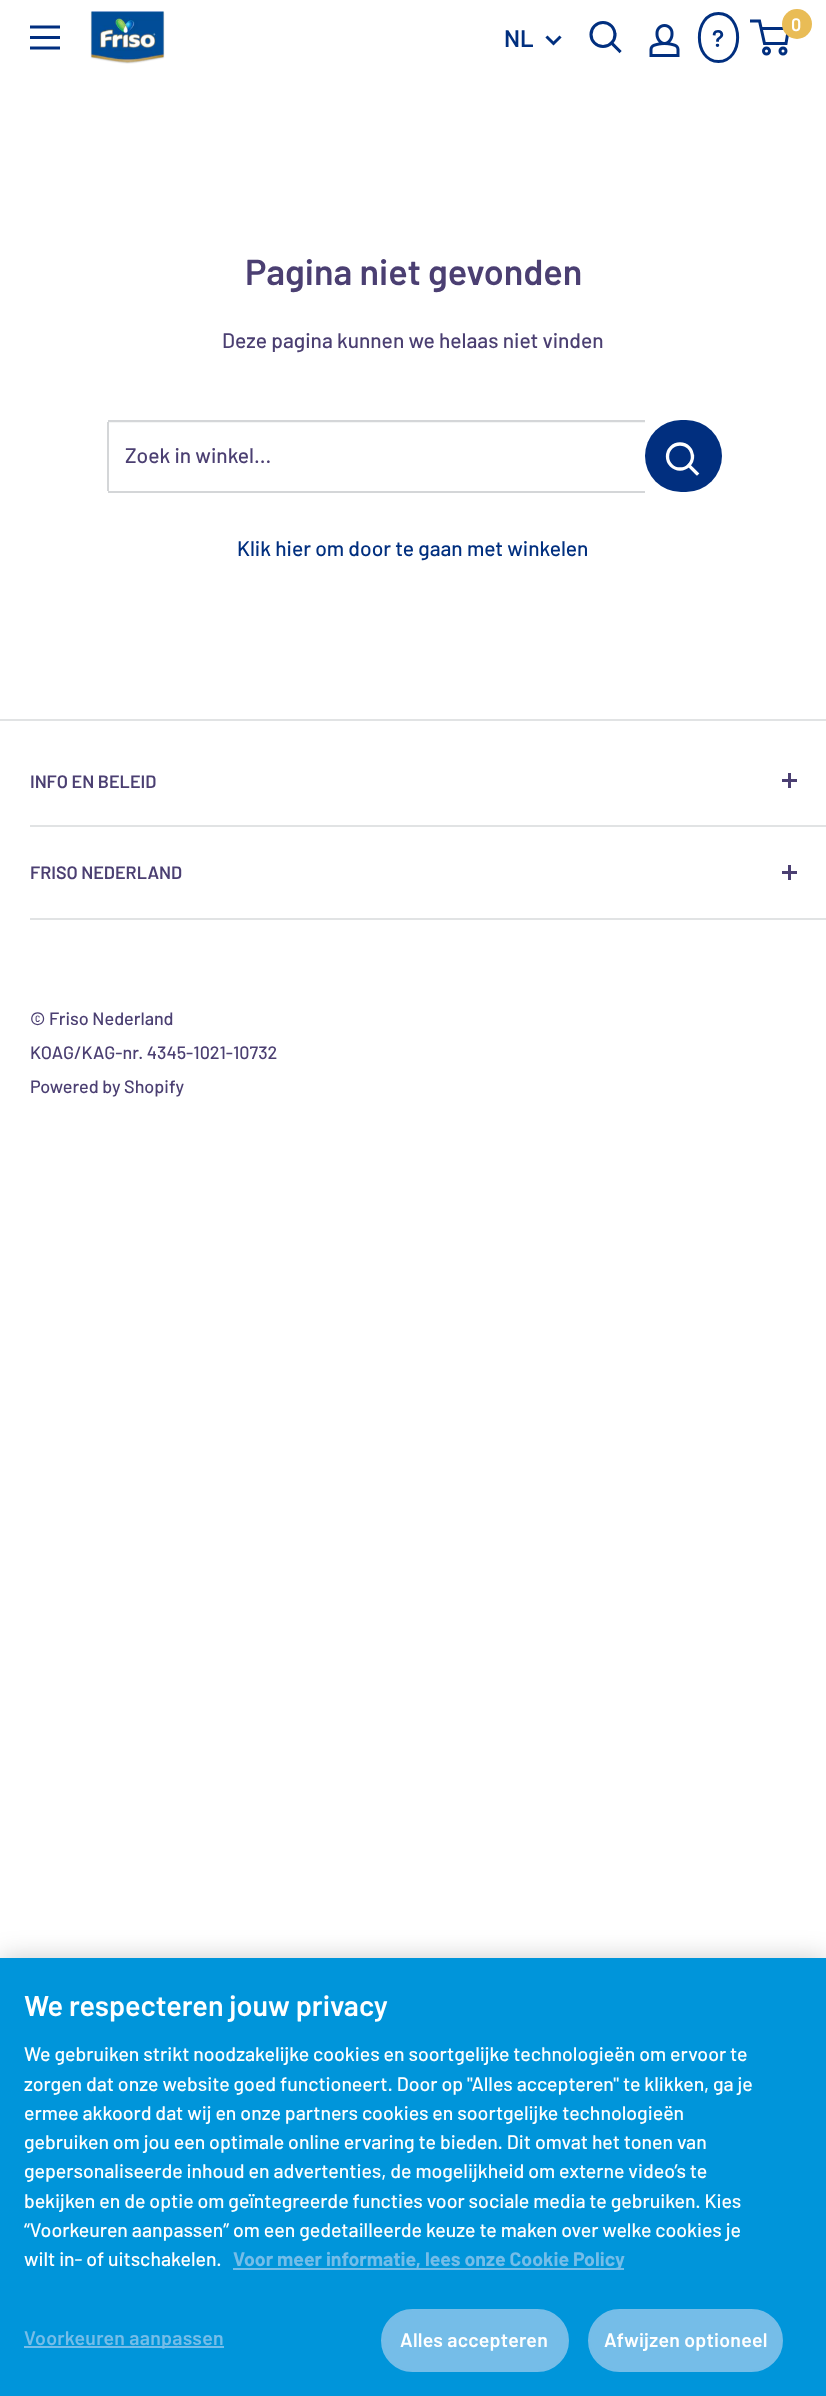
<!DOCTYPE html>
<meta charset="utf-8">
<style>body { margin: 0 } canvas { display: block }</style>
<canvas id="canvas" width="826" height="2396"></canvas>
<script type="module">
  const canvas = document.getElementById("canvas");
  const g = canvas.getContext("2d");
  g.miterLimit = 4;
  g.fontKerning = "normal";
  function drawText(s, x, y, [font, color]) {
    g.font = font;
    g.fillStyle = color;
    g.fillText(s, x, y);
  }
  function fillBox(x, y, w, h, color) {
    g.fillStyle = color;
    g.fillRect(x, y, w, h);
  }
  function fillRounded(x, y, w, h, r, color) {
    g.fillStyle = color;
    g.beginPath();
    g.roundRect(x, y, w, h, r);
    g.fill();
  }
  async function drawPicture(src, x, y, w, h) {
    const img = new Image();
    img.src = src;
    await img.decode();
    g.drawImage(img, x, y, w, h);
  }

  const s1 = ["600 24px Barlow", "#012F7F"];
  const s2 = ["600 18px Barlow", "#FFFFFF"];
  const s3 = ["600 36px Barlow", "#4B3F72"];
  const s4 = ["500 21px Barlow", "#4B3F72"];
  const s5 = ["500 21px Barlow", "#012F7F"];
  const s6 = ["600 18px Barlow", "#4B3F72"];
  const s7 = ["500 18px Barlow", "#4B3F72"];
  const s8 = ["600 28.75px Barlow", "#FFFFFF"];
  const s9 = ["500 19.5px Barlow", "#FFFFFF"];
  const s10 = ["bold 19.5px Barlow", "#75BDE8"];
  const s11 = ["600 19.5px Barlow", "#75BDE8"];
  const s12 = ["600 19.5px Barlow", "#FFFFFF"];

  fillBox(0, 0, 826, 2396, "#FFFFFF");
  await drawPicture("pic1.png", 30, 25, 30, 25);
  await drawPicture("pic2.png", 90, 11, 75, 53);
  drawText("NL", 504, 47, s1);
  g.beginPath();
  g.moveTo(559.5, 37.5);
  g.lineTo(553.5, 43.5);
  g.lineTo(547.5, 37.5);
  g.strokeStyle = "#012F7F";
  g.lineWidth = 3;
  g.lineCap = "square";
  g.stroke();
  g.beginPath();
  g.moveTo(619.5, 51);
  g.lineTo(611.5, 43);
  g.lineWidth = 3.1;
  g.stroke();
  g.beginPath();
  g.arc(603, 34.5, 12, 0, Math.PI * 2);
  g.stroke();
  await drawPicture("pic3.png", 649, 24, 31, 33);
  g.beginPath();
  g.moveTo(718.5, 13.5);
  g.bezierCurveTo(744, 13.5, 744, 61.5, 718.5, 61.5);
  g.bezierCurveTo(693, 61.5, 693, 13.5, 718.5, 13.5);
  g.closePath();
  g.lineWidth = 3;
  g.lineCap = "butt";
  g.stroke();
  drawText("?", 712, 47, s1);
  g.beginPath();
  g.arc(766.5, 51, 3, 0, Math.PI * 2);
  g.stroke();
  g.beginPath();
  g.arc(783, 51, 3, 0, Math.PI * 2);
  g.stroke();
  g.beginPath();
  g.moveTo(761, 28.5);
  g.lineTo(788.5, 28.5);
  g.lineTo(786, 43.5);
  g.lineTo(764.5, 43.5);
  g.lineTo(759.5, 21);
  g.lineTo(750, 21);
  g.stroke();
  g.fillStyle = "#E9BC56";
  g.beginPath();
  g.arc(797, 24, 15, 0, Math.PI * 2);
  g.fill();
  drawText("0", 791, 31, s2);
  drawText("Pagina niet gevonden", 245, 285, s3);
  drawText("Deze pagina kunnen we helaas niet vinden", 222, 348, s4);
  g.fillStyle = "#F4F5F5";
  g.beginPath();
  g.moveTo(110, 423);
  g.lineTo(645, 423);
  g.lineTo(645, 422);
  g.lineTo(110, 422);
  g.bezierCurveTo(108, 422, 108, 423, 108, 424);
  g.closePath();
  g.fill();
  fillBox(108, 420, 537, 2, "#D4D6D8");
  fillBox(108, 491, 537, 2, "#D4D6D8");
  fillBox(107, 422, 2, 69, "#D4D6D8");
  drawText("Zoek in winkel...", 125, 463, s4);
  fillRounded(645, 420, 77, 72, 36, "#012F7F");
  g.beginPath();
  g.moveTo(697, 473.5);
  g.lineTo(689, 465.5);
  g.strokeStyle = "#FFFFFF";
  g.lineWidth = 3.3;
  g.lineCap = "square";
  g.stroke();
  g.beginPath();
  g.arc(680, 456.5, 12.5, 0, Math.PI * 2);
  g.stroke();
  drawText("Klik hier om door te gaan met winkelen", 237, 556, s5);
  fillBox(0, 719, 826, 2, "#E1E3E4");
  fillBox(30, 825, 796, 2, "#E1E3E4");
  drawText("INFO EN BELEID", 30, 788, s6);
  fillBox(788, 773, 3, 15, "#4B3F72");
  fillBox(782, 779, 15, 3, "#4B3F72");
  fillBox(30, 918, 796, 2, "#E1E3E4");
  drawText("FRISO NEDERLAND", 30, 879, s6);
  fillBox(788, 865, 3, 15, "#4B3F72");
  fillBox(782, 871, 15, 3, "#4B3F72");
  drawText("© Friso Nederland", 30, 1025, s7);
  drawText("KOAG/KAG-nr. 4345-1021-10732", 30, 1059, s7);
  drawText("Powered by Shopify", 30, 1093, s7);
  g.fillStyle = "rgba(0, 0, 0, 0.2)";
  g.filter = "blur(13.5px)";
  g.beginPath();
  g.rect(0, 1958, 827, 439);
  g.fill();
  g.filter = "none";
  fillBox(0, 1958, 826, 438, "#0095DA");
  drawText("We respecteren jouw privacy", 24, 2016, s8);
  drawText("We gebruiken strikt noodzakelijke cookies en soortgelijke technologieën om ervoor te", 24, 2061, s9);
  drawText("zorgen dat onze website goed functioneert. Door op \"Alles accepteren\" te klikken, ga je", 24, 2091, s9);
  drawText("ermee akkoord dat wij en onze partners cookies en soortgelijke technologieën", 24, 2120, s9);
  drawText("gebruiken om jou een optimale online ervaring te bieden. Dit omvat het tonen van", 24, 2149, s9);
  drawText("gepersonaliseerde inhoud en advertenties, de mogelijkheid om externe video’s te", 24, 2178, s9);
  drawText("bekijken en de optie om geïntegreerde functies voor sociale media te gebruiken. Kies", 24, 2208, s9);
  drawText("“Voorkeuren aanpassen” om een gedetailleerde keuze te maken over welke cookies je", 24, 2237, s9);
  drawText("wilt in- of uitschakelen.", 24, 2266, s9);
  fillBox(233, 2268, 391, 2, "#75BDE8");
  drawText("Voor meer informatie, lees onze Cookie Policy", 233, 2266, s10);
  fillBox(24, 2346, 200, 2, "#75BDE8");
  g.letterSpacing = "0.25px";
  drawText("Voorkeuren aanpassen", 24, 2345, s11);
  g.beginPath();
  g.roundRect(382, 2310, 186, 61, 30.5);
  g.fill();
  g.strokeStyle = "#75BDE8";
  g.lineWidth = 2;
  g.stroke();
  drawText("Alles accepteren", 400, 2347, s12);
  g.fillStyle = "#75BDE8";
  g.beginPath();
  g.roundRect(589, 2310, 193, 61, 30.5);
  g.fill();
  g.stroke();
  drawText("Afwijzen optioneel", 604, 2347, s12);
</script>
